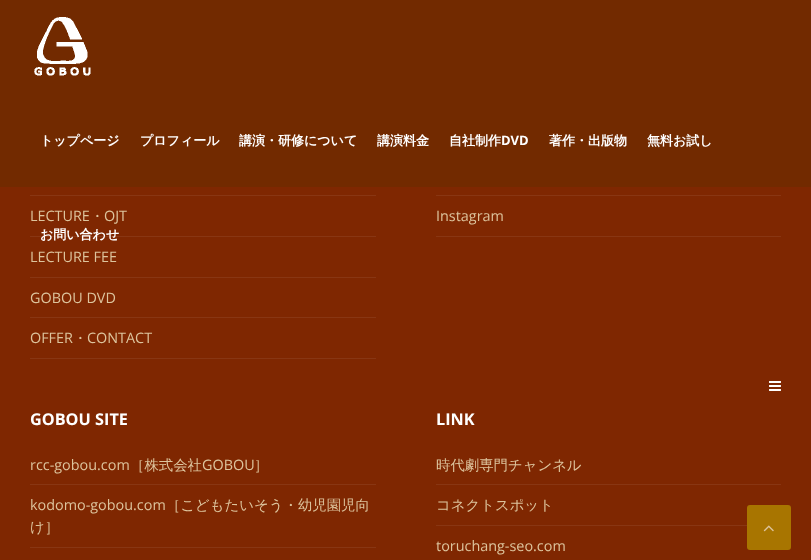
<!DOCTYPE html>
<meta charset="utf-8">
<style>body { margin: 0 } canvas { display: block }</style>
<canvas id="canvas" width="811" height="560"></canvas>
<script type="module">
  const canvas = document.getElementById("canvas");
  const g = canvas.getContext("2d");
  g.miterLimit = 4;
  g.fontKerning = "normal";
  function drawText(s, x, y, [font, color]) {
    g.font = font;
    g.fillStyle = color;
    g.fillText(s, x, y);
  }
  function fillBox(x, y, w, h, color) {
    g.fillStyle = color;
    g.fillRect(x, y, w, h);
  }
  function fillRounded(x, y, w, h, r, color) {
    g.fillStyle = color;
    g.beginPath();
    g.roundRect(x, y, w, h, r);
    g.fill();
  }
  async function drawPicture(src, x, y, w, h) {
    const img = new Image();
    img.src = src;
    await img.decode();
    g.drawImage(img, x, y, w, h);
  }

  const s1 = ["bold 13px WenQuanYi Zen Hei", "#FFFFFF"];
  const s2 = ["bold 13px Open Sans", "#FFFFFF"];
  const s3 = ["14.4px Open Sans", "#DDC49D"];
  const s4 = ["500 14.4px WenQuanYi Zen Hei", "#DDC49D"];
  const s5 = ["bold 16.25px Open Sans", "#FFFFFF"];

  fillBox(0, 0, 811, 560, "#7F2701");
  fillBox(0, 0, 811, 187, "#722A00");
  await drawPicture("pic1.png", 34, 17, 57, 59);
  drawText("トップページ", 40, 145, s1);
  drawText("プロフィール", 140, 145, s1);
  drawText("講演・研修について", 239, 145, s1);
  drawText("講演料金", 377, 145, s1);
  drawText("自社制作", 449, 145, s1);
  drawText("DVD", 501, 145, s2);
  drawText("著作・出版物", 549, 145, s1);
  drawText("無料お試し", 647, 145, s1);
  fillBox(30, 236, 346, 1, "#883613");
  drawText("お問い合わせ", 40, 239, s1);
  await drawPicture("pic2.png", 769, 381, 12, 10);
  fillBox(30, 195, 346, 1, "#883613");
  drawText("LECTURE", 30, 221, s3);
  drawText("・", 90, 221, s4);
  drawText("OJT", 104, 221, s3);
  fillBox(30, 277, 346, 1, "#883613");
  drawText("LECTURE FEE", 30, 262, s3);
  fillBox(30, 317, 346, 1, "#883613");
  drawText("GOBOU DVD", 30, 303, s3);
  fillBox(30, 358, 346, 1, "#883613");
  drawText("OFFER", 30, 343, s3);
  drawText("・", 73, 343, s4);
  drawText("CONTACT", 87, 343, s3);
  fillBox(436, 195, 345, 1, "#883613");
  fillBox(436, 236, 345, 1, "#883613");
  drawText("Instagram", 436, 221, s3);
  drawText("GOBOU SITE", 30, 425, s5);
  fillBox(30, 484, 346, 1, "#883613");
  drawText("rcc-gobou.com", 30, 470, s3);
  drawText("［株式会社", 130, 470, s4);
  drawText("GOBOU", 202, 470, s3);
  drawText("］", 254, 470, s4);
  fillBox(30, 547, 346, 1, "#883613");
  drawText("kodomo-gobou.com", 30, 510, s3);
  drawText("［こどもたいそう・幼児園児向", 166, 510, s4);
  drawText("け］", 30, 532, s4);
  drawText("LINK", 436, 425, s5);
  fillBox(436, 484, 345, 1, "#883613");
  drawText("時代劇専門チャンネル", 436, 470, s4);
  fillBox(436, 525, 311, 1, "#883613");
  drawText("コネクトスポット", 436, 510, s4);
  drawText("toruchang-seo.com", 436, 551, s3);
  fillRounded(747, 505, 44, 45, 3, "#A87500");
  await drawPicture("pic3.png", 763, 525, 11, 7);
</script>
